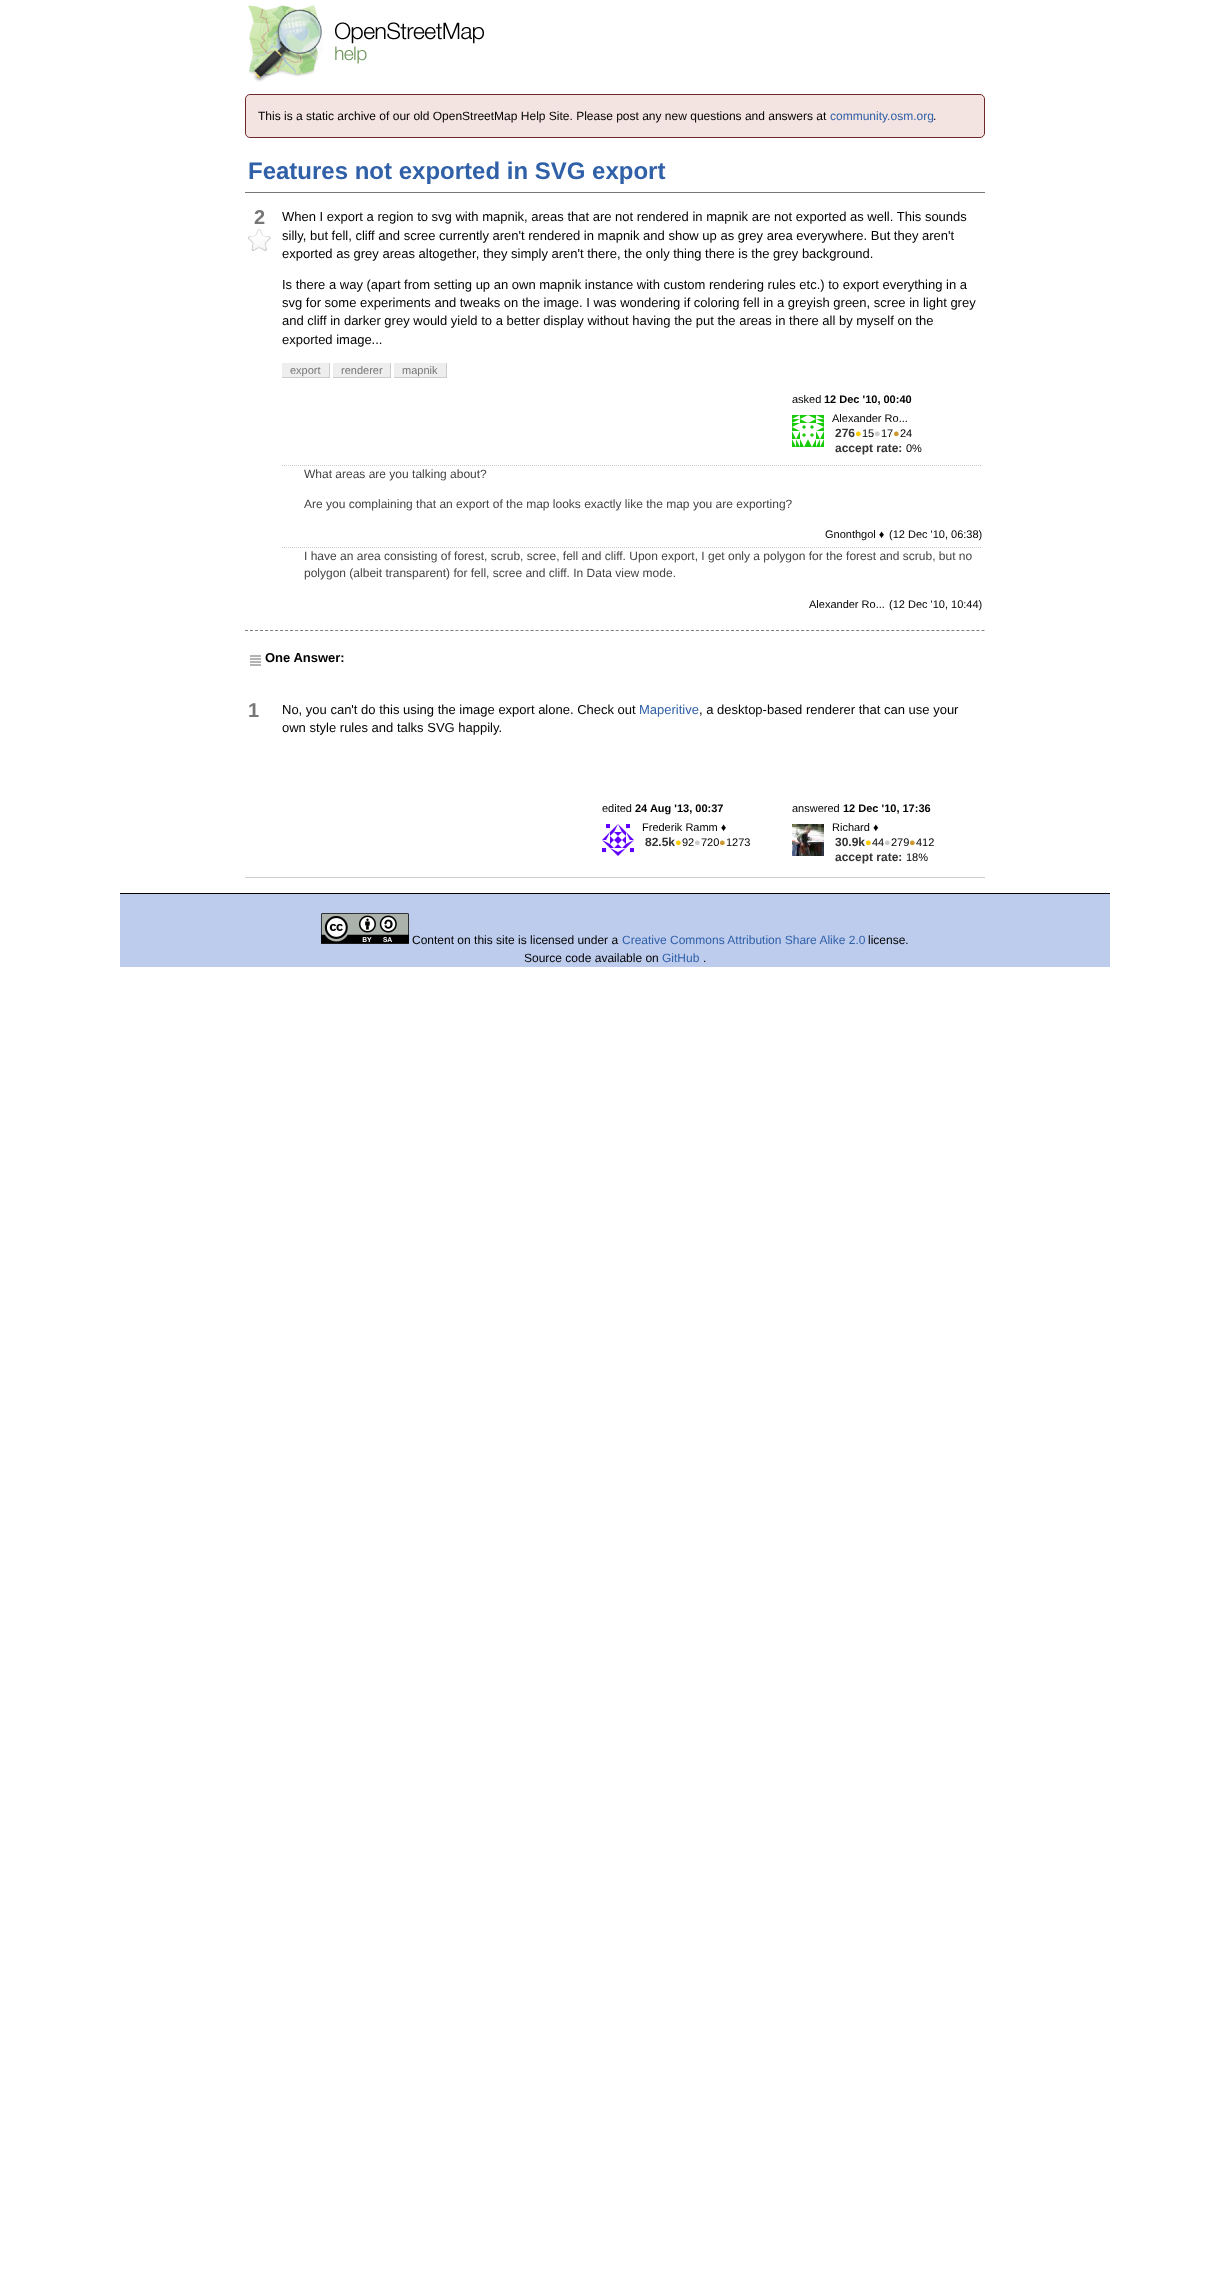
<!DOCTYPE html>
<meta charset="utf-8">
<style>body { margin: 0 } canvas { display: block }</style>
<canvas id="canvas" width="1230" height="2275"></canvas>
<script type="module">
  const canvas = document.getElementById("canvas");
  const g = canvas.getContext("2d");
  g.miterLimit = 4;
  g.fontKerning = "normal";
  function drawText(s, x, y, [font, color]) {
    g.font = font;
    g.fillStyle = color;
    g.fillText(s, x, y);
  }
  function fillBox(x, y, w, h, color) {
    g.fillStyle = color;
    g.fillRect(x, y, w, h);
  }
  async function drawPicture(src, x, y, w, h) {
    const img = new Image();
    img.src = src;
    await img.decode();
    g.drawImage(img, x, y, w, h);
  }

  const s1 = ["12px Liberation Sans", "#000000"];
  const s2 = ["12px Liberation Sans", "#3060A8"];
  const s3 = ["bold 24px Liberation Sans", "#3060A8"];
  const s4 = ["bold 20px Liberation Sans", "#777777"];
  const s5 = ["13px Liberation Sans", "#000000"];
  const s6 = ["11px Liberation Sans", "#777777"];
  const s7 = ["11px Liberation Sans", "#000000"];
  const s8 = ["bold 11px Liberation Sans", "#000000"];
  const s9 = ["bold 12px Liberation Sans", "#333333"];
  const s10 = ["11px Liberation Sans", "#FFCC00"];
  const s11 = ["11px Liberation Sans", "#CCCCCC"];
  const s12 = ["11px Liberation Sans", "#CC9933"];
  const s13 = ["12px Liberation Sans", "#444444"];
  const s14 = ["bold 13px Liberation Sans", "#000000"];
  const s15 = ["13px Liberation Sans", "#3060A8"];

  fillBox(0, 0, 1230, 2275, "#FFFFFF");
  await drawPicture("pic1.png", 248, 5, 236, 77);
  g.fillStyle = "#F3E3E1";
  g.beginPath();
  g.roundRect(245.5, 94.5, 739, 43, 4.5);
  g.fill();
  g.strokeStyle = "#6B2B28";
  g.stroke();
  drawText("This is a static archive of our old OpenStreetMap Help Site. Please post any new questions and answers at", 258, 120, s1);
  drawText("community.osm.org", 830, 120, s2);
  drawText(".", 933, 120, s1);
  fillBox(245, 192, 740, 1, "#777777");
  drawText("Features not exported in SVG export", 248, 179, s3);
  drawText("2", 254, 224, s4);
  await drawPicture("pic2.png", 248, 229, 23, 22);
  drawText("When I export a region to svg with mapnik, areas that are not rendered in mapnik are not exported as well. This sounds", 282, 221, s5);
  drawText("silly, but fell, cliff and scree currently aren't rendered in mapnik and show up as grey area everywhere. But they aren't", 282, 240, s5);
  drawText("exported as grey areas altogether, they simply aren't there, the only thing there is the grey background.", 282, 258, s5);
  drawText("Is there a way (apart from setting up an own mapnik instance with custom rendering rules etc.) to export everything in a", 282, 289, s5);
  drawText("svg for some experiments and tweaks on the image. I was wondering if coloring fell in a greyish green, scree in light grey", 282, 307, s5);
  drawText("and cliff in darker grey would yield to a better display without having the put the areas in there all by myself on the", 282, 325, s5);
  drawText("exported image...", 282, 344, s5);
  fillBox(282, 363, 47, 14, "#EEEEEE");
  drawText("export", 290, 374, s6);
  fillBox(329, 363, 1, 15, "#CCCCCC");
  fillBox(282, 377, 48, 1, "#CCCCCC");
  fillBox(333, 363, 57, 14, "#EEEEEE");
  drawText("renderer", 341, 374, s6);
  fillBox(390, 363, 1, 15, "#CCCCCC");
  fillBox(333, 377, 58, 1, "#CCCCCC");
  fillBox(394, 363, 52, 14, "#EEEEEE");
  drawText("mapnik", 402, 374, s6);
  fillBox(446, 363, 1, 15, "#CCCCCC");
  fillBox(394, 377, 53, 1, "#CCCCCC");
  drawText("asked", 792, 403, s7);
  drawText("12 Dec '10, 00:40", 824, 403, s8);
  await drawPicture("pic3.png", 792, 415, 32, 32);
  drawText("Alexander Ro...", 832, 422, s7);
  drawText("276", 835, 437, s9);
  drawText("●", 855, 437, s10);
  drawText("15", 862, 437, s7);
  drawText("●", 874, 437, s11);
  drawText("17", 881, 437, s7);
  drawText("●", 893, 437, s12);
  drawText("24", 900, 437, s7);
  drawText("accept rate:", 835, 452, s9);
  drawText("0%", 906, 452, s7);
  g.beginPath();
  g.moveTo(282, 465.5);
  g.lineTo(982, 465.5);
  g.strokeStyle = "#CCCCCE";
  g.setLineDash([1, 1]);
  g.stroke();
  drawText("What areas are you talking about?", 304, 478, s13);
  drawText("Are you complaining that an export of the map looks exactly like the map you are exporting?", 304, 508, s13);
  drawText("Gnonthgol ♦", 825, 538, s7);
  drawText("(12 Dec '10, 06:38)", 889, 538, s7);
  g.beginPath();
  g.moveTo(282, 547.5);
  g.lineTo(982, 547.5);
  g.stroke();
  drawText("I have an area consisting of forest, scrub, scree, fell and cliff. Upon export, I get only a polygon for the forest and scrub, but no", 304, 560, s13);
  drawText("polygon (albeit transparent) for fell, scree and cliff. In Data view mode.", 304, 577, s13);
  drawText("Alexander Ro...", 809, 608, s7);
  drawText("(12 Dec '10, 10:44)", 889, 608, s7);
  g.beginPath();
  g.moveTo(245, 630.5);
  g.lineTo(985, 630.5);
  g.strokeStyle = "#808080";
  g.setLineDash([3, 2.01]);
  g.stroke();
  await drawPicture("pic4.png", 250, 655, 11, 11);
  drawText("One Answer:", 265, 662, s14);
  fillBox(245, 877, 740, 1, "#CCCCCE");
  drawText("1", 248, 717, s4);
  drawText("No, you can't do this using the image export alone. Check out", 282, 714, s5);
  drawText("Maperitive", 639, 714, s15);
  drawText(", a desktop-based renderer that can use your", 699, 714, s5);
  drawText("own style rules and talks SVG happily.", 282, 732, s5);
  drawText("edited", 602, 812, s7);
  drawText("24 Aug '13, 00:37", 635, 812, s8);
  await drawPicture("pic5.png", 602, 824, 32, 32);
  drawText("Frederik Ramm ♦", 642, 831, s7);
  drawText("82.5k", 645, 846, s9);
  drawText("●", 675, 846, s10);
  drawText("92", 682, 846, s7);
  drawText("●", 694, 846, s11);
  drawText("720", 701, 846, s7);
  drawText("●", 719, 846, s12);
  drawText("1273", 726, 846, s7);
  drawText("answered", 792, 812, s7);
  drawText("12 Dec '10, 17:36", 843, 812, s8);
  await drawPicture("pic6.png", 792, 824, 32, 32);
  drawText("Richard ♦", 832, 831, s7);
  drawText("30.9k", 835, 846, s9);
  drawText("●", 865, 846, s10);
  drawText("44", 872, 846, s7);
  drawText("●", 884, 846, s11);
  drawText("279", 891, 846, s7);
  drawText("●", 909, 846, s12);
  drawText("412", 916, 846, s7);
  drawText("accept rate:", 835, 861, s9);
  drawText("18%", 906, 861, s7);
  fillBox(120, 894, 990, 73, "#BDCCED");
  fillBox(120, 893, 990, 1, "#000000");
  await drawPicture("pic7.png", 321, 913, 88, 31);
  drawText("Content on this site is licensed under a", 412, 944, s1);
  drawText("Creative Commons Attribution Share Alike 2.0", 622, 944, s2);
  drawText("license.", 868, 944, s1);
  drawText("Source code available on", 524, 962, s1);
  drawText("GitHub", 662, 962, s2);
  drawText(".", 703, 962, s1);
</script>
